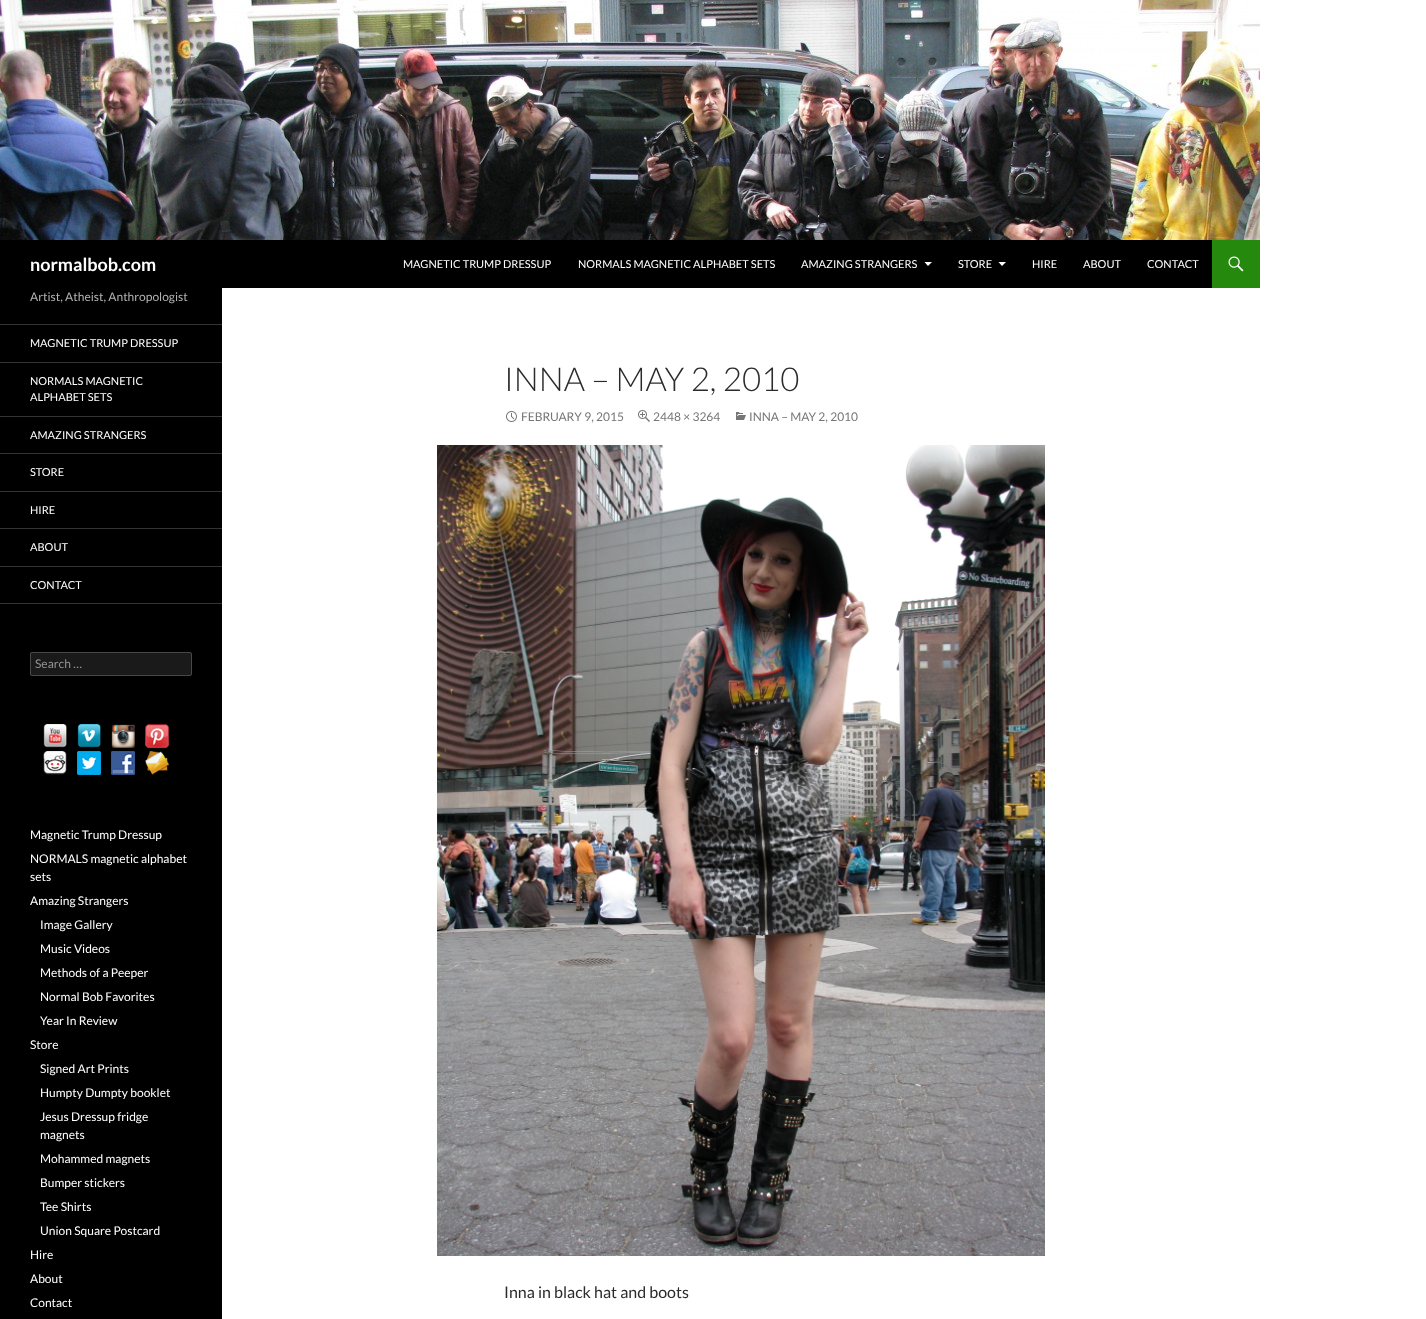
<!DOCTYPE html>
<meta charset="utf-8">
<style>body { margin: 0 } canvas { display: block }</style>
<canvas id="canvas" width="1426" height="1319"></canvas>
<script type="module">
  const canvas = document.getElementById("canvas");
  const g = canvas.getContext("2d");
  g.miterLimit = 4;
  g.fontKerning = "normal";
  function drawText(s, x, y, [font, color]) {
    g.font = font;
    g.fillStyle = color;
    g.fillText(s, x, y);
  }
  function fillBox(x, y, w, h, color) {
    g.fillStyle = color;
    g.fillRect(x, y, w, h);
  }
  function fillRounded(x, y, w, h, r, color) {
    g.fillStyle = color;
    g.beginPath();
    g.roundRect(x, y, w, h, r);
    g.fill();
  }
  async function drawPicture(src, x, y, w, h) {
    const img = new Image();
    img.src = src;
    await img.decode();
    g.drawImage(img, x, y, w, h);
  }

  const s1 = ["bold 18px Lato", "#FFFFFF"];
  const s2 = ["11px Lato", "#FFFFFF"];
  const s3 = ["12px Lato", "#B3B3B3"];
  const s4 = ["12px Lato", "#939393"];
  const s5 = ["12px Lato", "#FFFFFF"];
  const s6 = ["300 33px Lato", "#2B2B2B"];
  const s7 = ["12px Lato", "#767676"];
  const s8 = ["16px Lato", "#2B2B2B"];

  fillBox(0, 0, 1426, 1319, "#FFFFFF");
  await drawPicture("pic1.png", 0, 0, 1260, 240);
  fillBox(0, 240, 1212, 48, "#000000");
  drawText("normalbob.com", 30, 271, s1);
  drawText("MAGNETIC TRUMP DRESSUP", 403, 268, s2);
  drawText("NORMALS MAGNETIC ALPHABET SETS", 578, 268, s2);
  drawText("AMAZING STRANGERS", 801, 268, s2);
  g.beginPath();
  g.moveTo(924.5, 262);
  g.lineTo(928, 266);
  g.lineTo(932, 262);
  g.closePath();
  g.fill();
  drawText("STORE", 958, 268, s2);
  g.beginPath();
  g.moveTo(998.5, 262);
  g.lineTo(1002, 266);
  g.lineTo(1006, 262);
  g.closePath();
  g.fill();
  drawText("HIRE", 1032, 268, s2);
  drawText("ABOUT", 1083, 268, s2);
  drawText("CONTACT", 1147, 268, s2);
  fillBox(1212, 240, 48, 48, "#24890D");
  await drawPicture("pic2.png", 1228, 256, 16, 16);
  fillBox(0, 288, 222, 1031, "#000000");
  drawText("Artist, Atheist, Anthropologist", 30, 301, s3);
  fillBox(0, 603, 222, 1, "#333333");
  fillBox(0, 324, 222, 1, "#333333");
  drawText("MAGNETIC TRUMP DRESSUP", 30, 347, s2);
  fillBox(0, 362, 222, 1, "#333333");
  drawText("NORMALS MAGNETIC", 30, 385, s2);
  drawText("ALPHABET SETS", 30, 401, s2);
  fillBox(0, 416, 222, 1, "#333333");
  drawText("AMAZING STRANGERS", 30, 439, s2);
  fillBox(0, 453, 222, 1, "#333333");
  drawText("STORE", 30, 476, s2);
  fillBox(0, 491, 222, 1, "#333333");
  drawText("HIRE", 30, 514, s2);
  fillBox(0, 528, 222, 1, "#333333");
  drawText("ABOUT", 30, 551, s2);
  fillBox(0, 566, 222, 1, "#333333");
  drawText("CONTACT", 30, 589, s2);
  fillRounded(30, 652, 162, 24, 2, "#1A1A1A");
  g.beginPath();
  g.roundRect(30.5, 652.5, 161, 23, 1.5);
  g.strokeStyle = "rgba(255, 255, 255, 0.2)";
  g.stroke();
  drawText("Search …", 35, 668, s4);
  await drawPicture("pic3.png", 43, 724, 24, 24);
  await drawPicture("pic4.png", 77, 724, 24, 24);
  await drawPicture("pic5.png", 111, 724, 24, 24);
  await drawPicture("pic6.png", 145, 724, 24, 24);
  await drawPicture("pic7.png", 43, 751, 24, 24);
  await drawPicture("pic8.png", 77, 751, 24, 24);
  await drawPicture("pic9.png", 111, 751, 24, 24);
  await drawPicture("pic10.png", 145, 751, 24, 24);
  drawText("Magnetic Trump Dressup", 30, 839, s5);
  drawText("NORMALS magnetic alphabet", 30, 863, s5);
  drawText("sets", 30, 881, s5);
  drawText("Amazing Strangers", 30, 905, s5);
  drawText("Image Gallery", 40, 929, s5);
  drawText("Music Videos", 40, 953, s5);
  drawText("Methods of a Peeper", 40, 977, s5);
  drawText("Normal Bob Favorites", 40, 1001, s5);
  drawText("Year In Review", 40, 1025, s5);
  drawText("Store", 30, 1049, s5);
  drawText("Signed Art Prints", 40, 1073, s5);
  drawText("Humpty Dumpty booklet", 40, 1097, s5);
  drawText("Jesus Dressup fridge", 40, 1121, s5);
  drawText("magnets", 40, 1139, s5);
  drawText("Mohammed magnets", 40, 1163, s5);
  drawText("Bumper stickers", 40, 1187, s5);
  drawText("Tee Shirts", 40, 1211, s5);
  drawText("Union Square Postcard", 40, 1235, s5);
  drawText("Hire", 30, 1259, s5);
  drawText("About", 30, 1283, s5);
  drawText("Contact", 30, 1307, s5);
  drawText("INNA – MAY 2, 2010", 504, 391, s6);
  await drawPicture("pic11.png", 506, 411, 11, 11);
  drawText("FEBRUARY 9, 2015", 521, 421, s7);
  await drawPicture("pic12.png", 638, 410, 12, 12);
  drawText("2448 × 3264", 653, 421, s7);
  await drawPicture("pic13.png", 736, 412, 10, 8);
  drawText("INNA – MAY 2, 2010", 749, 421, s7);
  await drawPicture("pic14.png", 437, 445, 608, 811);
  drawText("Inna in black hat and boots", 504, 1298, s8);
</script>
